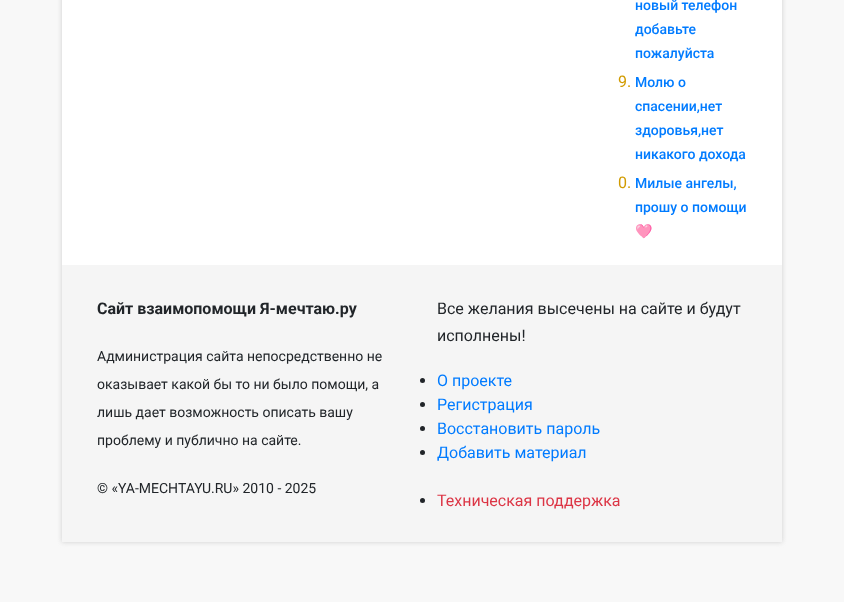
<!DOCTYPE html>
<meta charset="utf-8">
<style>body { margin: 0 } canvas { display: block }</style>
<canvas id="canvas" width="844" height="602"></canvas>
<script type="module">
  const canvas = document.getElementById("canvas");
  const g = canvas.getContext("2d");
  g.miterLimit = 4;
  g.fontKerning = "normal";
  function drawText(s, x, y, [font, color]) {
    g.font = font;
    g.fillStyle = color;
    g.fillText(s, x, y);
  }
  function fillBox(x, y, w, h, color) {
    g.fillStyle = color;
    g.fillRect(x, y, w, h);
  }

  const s1 = ["500 14px Roboto", "#007BFF"];
  const s2 = ["16px Roboto", "#D19B00"];
  const s3 = ["14px Noto Color Emoji", "#007BFF"];
  const s4 = ["bold 16px Roboto", "#212529"];
  const s5 = ["14px Roboto", "#212529"];
  const s6 = ["16px Roboto", "#212529"];
  const s7 = ["16px Roboto", "#007BFF"];
  const s8 = ["16px Roboto", "#DC3545"];

  fillBox(0, 0, 844, 602, "#F8F8F8");
  g.fillStyle = "#CDCDCD";
  g.filter = "blur(2.5px)";
  g.beginPath();
  g.rect(62, -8, 720, 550);
  g.fill();
  g.filter = "none";
  fillBox(62, 0, 720, 265, "#FFFFFF");
  drawText("новый телефон", 635, 10, s1);
  drawText("добавьте", 635, 34, s1);
  drawText("пожалуйста", 635, 58, s1);
  drawText("9.", 618, 87, s2);
  drawText("Молю о", 635, 87, s1);
  drawText("спасении,нет", 635, 111, s1);
  drawText("здоровья,нет", 635, 135, s1);
  drawText("никакого дохода", 635, 159, s1);
  drawText("0.", 618, 188, s2);
  drawText("Милые ангелы,", 635, 188, s1);
  drawText("прошу о помощи", 635, 212, s1);
  drawText("🩷", 635, 236, s3);
  fillBox(62, 265, 720, 277, "#F5F5F5");
  drawText("Сайт взаимопомощи Я-мечтаю.ру", 97, 314, s4);
  drawText("Администрация сайта непосредственно не", 97, 361, s5);
  drawText("оказывает какой бы то ни было помощи, а", 97, 389, s5);
  drawText("лишь дает возможность описать вашу", 97, 417, s5);
  drawText("проблему и публично на сайте.", 97, 445, s5);
  drawText("© «YA-MECHTAYU.RU» 2010 - 2025", 97, 493, s5);
  drawText("Все желания высечены на сайте и будут", 437, 314, s6);
  drawText("исполнены!", 437, 341, s6);
  g.beginPath();
  g.arc(422.5, 380.5, 2.5, 0, Math.PI * 2);
  g.fill();
  drawText("О проекте", 437, 386, s7);
  g.fillStyle = "#212529";
  g.beginPath();
  g.arc(422.5, 404.5, 2.5, 0, Math.PI * 2);
  g.fill();
  drawText("Регистрация", 437, 410, s7);
  g.fillStyle = "#212529";
  g.beginPath();
  g.arc(422.5, 428.5, 2.5, 0, Math.PI * 2);
  g.fill();
  drawText("Восстановить пароль", 437, 434, s7);
  g.fillStyle = "#212529";
  g.beginPath();
  g.arc(422.5, 452.5, 2.5, 0, Math.PI * 2);
  g.fill();
  drawText("Добавить материал", 437, 458, s7);
  g.fillStyle = "#212529";
  g.beginPath();
  g.arc(422.5, 500.5, 2.5, 0, Math.PI * 2);
  g.fill();
  drawText("Техническая поддержка", 437, 506, s8);
</script>
